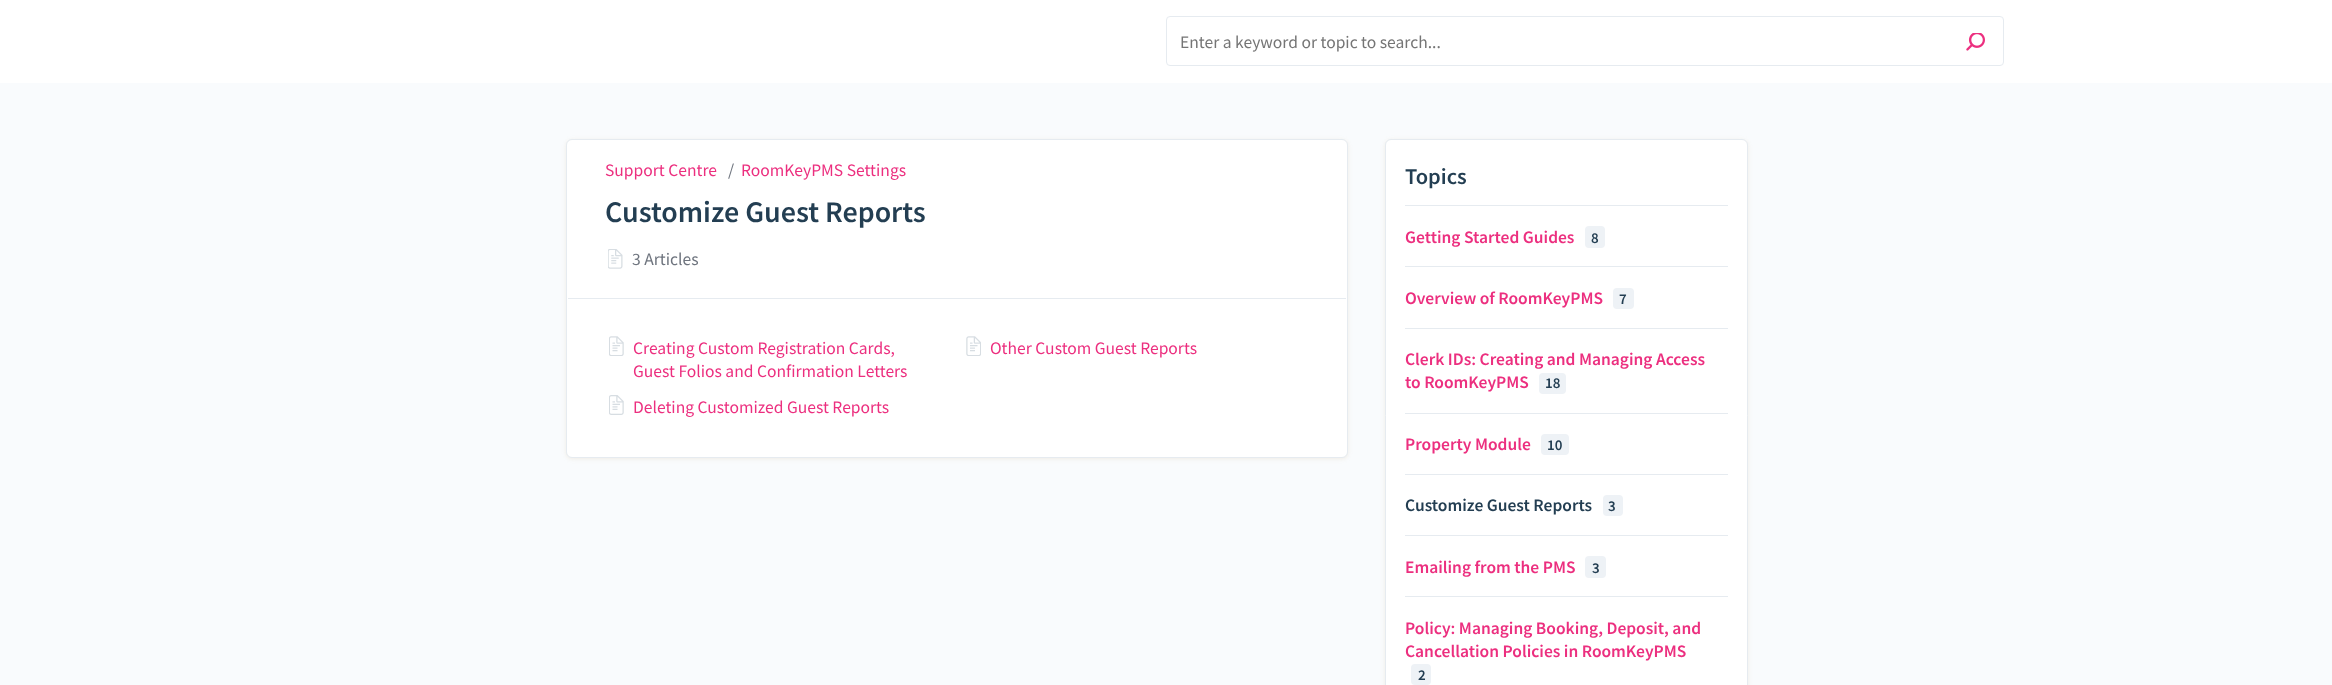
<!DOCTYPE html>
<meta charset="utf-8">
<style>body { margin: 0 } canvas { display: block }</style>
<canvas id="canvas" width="2332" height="685"></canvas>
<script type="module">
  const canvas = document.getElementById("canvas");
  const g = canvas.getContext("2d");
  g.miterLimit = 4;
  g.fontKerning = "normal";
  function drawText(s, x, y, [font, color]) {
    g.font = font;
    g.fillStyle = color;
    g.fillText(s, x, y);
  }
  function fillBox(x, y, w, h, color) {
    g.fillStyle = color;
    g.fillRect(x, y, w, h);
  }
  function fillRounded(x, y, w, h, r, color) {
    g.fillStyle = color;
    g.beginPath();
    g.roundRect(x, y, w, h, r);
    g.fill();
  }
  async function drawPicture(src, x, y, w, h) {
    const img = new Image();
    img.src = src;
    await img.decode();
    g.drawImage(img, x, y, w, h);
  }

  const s1 = ["17.5px Source Sans Pro", "#757575"];
  const s2 = ["17.5px Source Sans Pro", "#EC2F7F"];
  const s3 = ["17.5px Source Sans Pro", "#6E747E"];
  const s4 = ["600 30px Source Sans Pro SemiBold", "#233E52"];
  const s5 = ["600 22.5px Source Sans Pro SemiBold", "#233E52"];
  const s6 = ["600 17.5px Source Sans Pro SemiBold", "#EC2F7F"];
  const s7 = ["600 15px Source Sans Pro SemiBold", "#233E52"];
  const s8 = ["600 17.5px Source Sans Pro SemiBold", "#233E52"];

  fillBox(0, 0, 2332, 685, "#F9FBFD");
  fillBox(0, 0, 2332, 83, "#FFFFFF");
  g.beginPath();
  g.roundRect(1166.5, 16.5, 837, 49, 3.5);
  g.strokeStyle = "#E6EBF0";
  g.stroke();
  drawText("Enter a keyword or topic to search...", 1180, 48, s1);
  await drawPicture("pic1.png", 1966, 33, 19, 18);
  g.fillStyle = "rgba(205, 178, 135, 0.2)";
  g.filter = "blur(2px)";
  g.beginPath();
  g.roundRect(566, 140, 782, 319, 6);
  g.fill();
  g.filter = "none";
  g.fillStyle = "#FFFFFF";
  g.beginPath();
  g.roundRect(566.5, 139.5, 781, 318, 5.5);
  g.fill();
  g.stroke();
  fillBox(568, 298, 778, 1, "#E6EBF0");
  drawText("Support Centre", 605, 176, s2);
  drawText("/", 728, 176, s3);
  drawText("RoomKeyPMS Settings", 741, 176, s2);
  drawText("Customize Guest Reports", 605, 222, s4);
  await drawPicture("pic2.png", 608, 249, 15, 20);
  drawText("3 Articles", 632, 265, s3);
  await drawPicture("pic3.png", 609, 336, 15, 20);
  drawText("Creating Custom Registration Cards,", 633, 354, s2);
  drawText("Guest Folios and Confirmation Letters", 633, 377, s2);
  await drawPicture("pic4.png", 966, 336, 15, 20);
  drawText("Other Custom Guest Reports", 990, 354, s2);
  await drawPicture("pic5.png", 609, 395, 15, 20);
  drawText("Deleting Customized Guest Reports", 633, 413, s2);
  g.fillStyle = "rgba(205, 178, 135, 0.2)";
  g.filter = "blur(2px)";
  g.beginPath();
  g.roundRect(1385, 140, 363, 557, 6);
  g.fill();
  g.filter = "none";
  g.fillStyle = "#FFFFFF";
  g.beginPath();
  g.roundRect(1385.5, 139.5, 362, 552, 5.5);
  g.fill();
  g.stroke();
  drawText("Topics", 1405, 184, s5);
  fillBox(1405, 205, 323, 1, "#E6EBF0");
  drawText("Getting Started Guides", 1405, 243, s6);
  fillRounded(1585, 226, 20, 22, 4, "#EEF2F6");
  drawText("8", 1591, 243, s7);
  fillBox(1405, 266, 323, 1, "#E6EBF0");
  drawText("Overview of RoomKeyPMS", 1405, 304, s6);
  fillRounded(1613, 288, 21, 21, 4, "#EEF2F6");
  drawText("7", 1619, 304, s7);
  fillBox(1405, 328, 323, 1, "#E6EBF0");
  drawText("Clerk IDs: Creating and Managing Access", 1405, 365, s6);
  drawText("to RoomKeyPMS", 1405, 388, s6);
  fillRounded(1539, 373, 27, 21, 4, "#EEF2F6");
  drawText("18", 1545, 388, s7);
  fillBox(1405, 413, 323, 1, "#E6EBF0");
  drawText("Property Module", 1405, 450, s6);
  fillRounded(1541, 434, 28, 21, 4, "#EEF2F6");
  drawText("10", 1547, 450, s7);
  fillBox(1405, 474, 323, 1, "#E6EBF0");
  drawText("Customize Guest Reports", 1405, 511, s8);
  fillRounded(1603, 495, 20, 21, 4, "#EEF2F6");
  drawText("3", 1608, 511, s7);
  fillBox(1405, 535, 323, 1, "#E6EBF0");
  drawText("Emailing from the PMS", 1405, 573, s6);
  fillRounded(1585, 556, 21, 22, 4, "#EEF2F6");
  drawText("3", 1592, 573, s7);
  fillBox(1405, 596, 323, 1, "#E6EBF0");
  drawText("Policy: Managing Booking, Deposit, and", 1405, 634, s6);
  drawText("Cancellation Policies in RoomKeyPMS", 1405, 657, s6);
  fillRounded(1411, 664, 20, 21, 4, "#EEF2F6");
  drawText("2", 1418, 680, s7);
</script>
